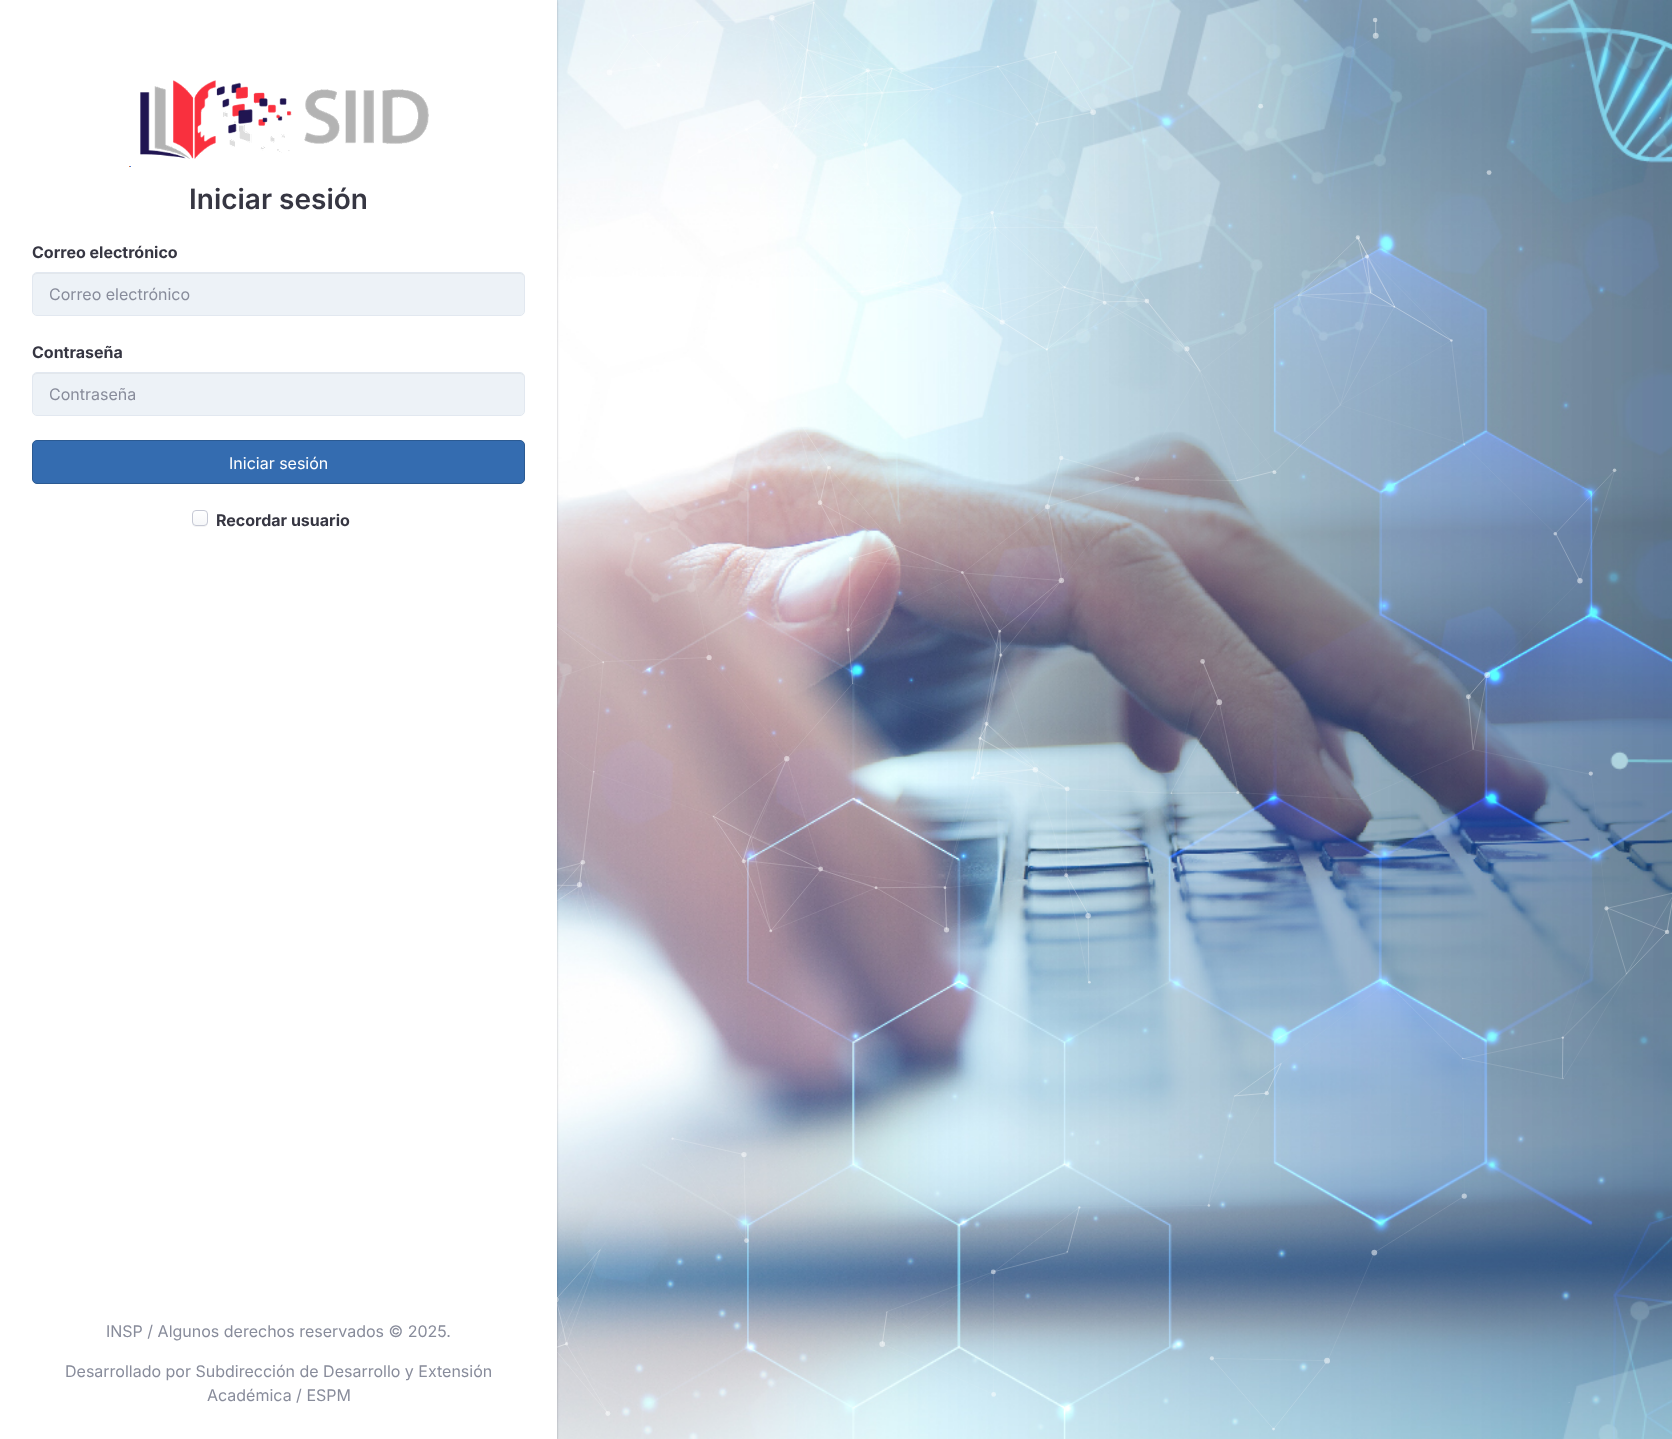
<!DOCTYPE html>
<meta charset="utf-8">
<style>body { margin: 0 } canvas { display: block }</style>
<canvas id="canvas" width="1672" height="1439"></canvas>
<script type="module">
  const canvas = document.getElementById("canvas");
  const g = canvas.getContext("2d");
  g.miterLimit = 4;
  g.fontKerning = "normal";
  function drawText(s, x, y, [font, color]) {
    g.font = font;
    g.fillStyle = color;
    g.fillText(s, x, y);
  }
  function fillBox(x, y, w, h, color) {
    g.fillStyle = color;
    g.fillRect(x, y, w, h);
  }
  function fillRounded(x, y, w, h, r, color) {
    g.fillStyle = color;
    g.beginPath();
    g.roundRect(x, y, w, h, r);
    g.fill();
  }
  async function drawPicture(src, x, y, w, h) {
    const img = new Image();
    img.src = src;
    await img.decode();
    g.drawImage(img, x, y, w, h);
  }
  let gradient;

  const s1 = ["600 28px Inter", "#363642"];
  const s2 = ["bold 16px Inter", "#363642"];
  const s3 = ["16px Inter", "#888C9B"];
  const s4 = ["16px Inter", "#FFFFFF"];

  fillBox(0, 0, 1672, 1439, "#FFFFFF");
  await drawPicture("pic2.png", 557, 0, 1115, 1439);
  await drawPicture("pic3.png", 557, 1, 1115, 1430);
  g.fillStyle = "rgba(20, 20, 31, 0.15)";
  g.filter = "blur(1.5px)";
  g.beginPath();
  g.rect(0, 1, 557, 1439);
  g.fill();
  g.filter = "none";
  g.strokeStyle = "rgba(20, 20, 31, 0.05)";
  g.strokeRect(-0.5, -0.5, 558, 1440);
  fillBox(0, 0, 557, 1439, "#FFFFFF");
  await drawPicture("pic1.png", 129, 80, 300, 87);
  drawText("Iniciar sesión", 189, 209, s1);
  drawText("Correo electrónico", 32, 258, s2);
  fillRounded(33, 273, 491, 42, 4, "#EDF2F7");
  g.fillStyle = "rgba(34, 34, 48, 0.05)";
  g.beginPath();
  g.moveTo(37, 274);
  g.lineTo(520, 274);
  g.bezierCurveTo(522, 274, 524, 276, 524, 278);
  g.bezierCurveTo(524, 275, 523, 273, 520, 273);
  g.lineTo(37, 273);
  g.bezierCurveTo(34, 273, 33, 275, 33, 278);
  g.bezierCurveTo(33, 276, 35, 274, 37, 274);
  g.closePath();
  g.fill();
  g.beginPath();
  g.roundRect(32.5, 272.5, 492, 43, 4.5);
  g.strokeStyle = "#E2E8F0";
  g.stroke();
  drawText("Correo electrónico", 49, 300, s3);
  drawText("Contraseña", 32, 358, s2);
  fillRounded(33, 373, 491, 42, 4, "#EDF2F7");
  g.fillStyle = "rgba(34, 34, 48, 0.05)";
  g.beginPath();
  g.moveTo(37, 374);
  g.lineTo(520, 374);
  g.bezierCurveTo(522, 374, 524, 376, 524, 378);
  g.bezierCurveTo(524, 375, 523, 373, 520, 373);
  g.lineTo(37, 373);
  g.bezierCurveTo(34, 373, 33, 375, 33, 378);
  g.bezierCurveTo(33, 376, 35, 374, 37, 374);
  g.closePath();
  g.fill();
  g.beginPath();
  g.roundRect(32.5, 372.5, 492, 43, 4.5);
  g.stroke();
  drawText("Contraseña", 49, 400, s3);
  g.fillStyle = "#346CB0";
  g.beginPath();
  g.roundRect(32.5, 440.5, 492, 43, 4.5);
  g.fill();
  g.strokeStyle = "#2B5A92";
  g.stroke();
  drawText("Iniciar sesión", 229, 469, s4);
  g.fillStyle = "#F4F4F5";
  g.beginPath();
  g.moveTo(192, 522);
  g.bezierCurveTo(192, 527.5, 195.5, 527, 200, 527);
  g.bezierCurveTo(204.5, 527, 208, 527.5, 208, 522);
  g.bezierCurveTo(208, 526.5, 203, 526, 200, 526);
  g.bezierCurveTo(197, 526, 192, 526.5, 192, 522);
  g.closePath();
  g.fill();
  g.save();
  g.beginPath();
  g.roundRect(192, 510, 16, 16, 4);
  g.clip();
  gradient = g.createLinearGradient(200, 511, 200, 525);
  gradient.addColorStop(0, "#FFFFFF");
  gradient.addColorStop(1, "#F6F7F9");
  g.fillStyle = gradient;
  g.fillRect(192, 511, 16, 14);
  g.restore();
  g.beginPath();
  g.roundRect(192.5, 510.5, 15, 15, 3.5);
  g.strokeStyle = "#C6C9D5";
  g.stroke();
  drawText("Recordar usuario", 216, 526, s2);
  drawText("INSP / Algunos derechos reservados © 2025.", 106, 1337, s3);
  drawText("Desarrollado por Subdirección de Desarrollo y Extensión", 65, 1377, s3);
  drawText("Académica / ESPM", 207, 1401, s3);
</script>
